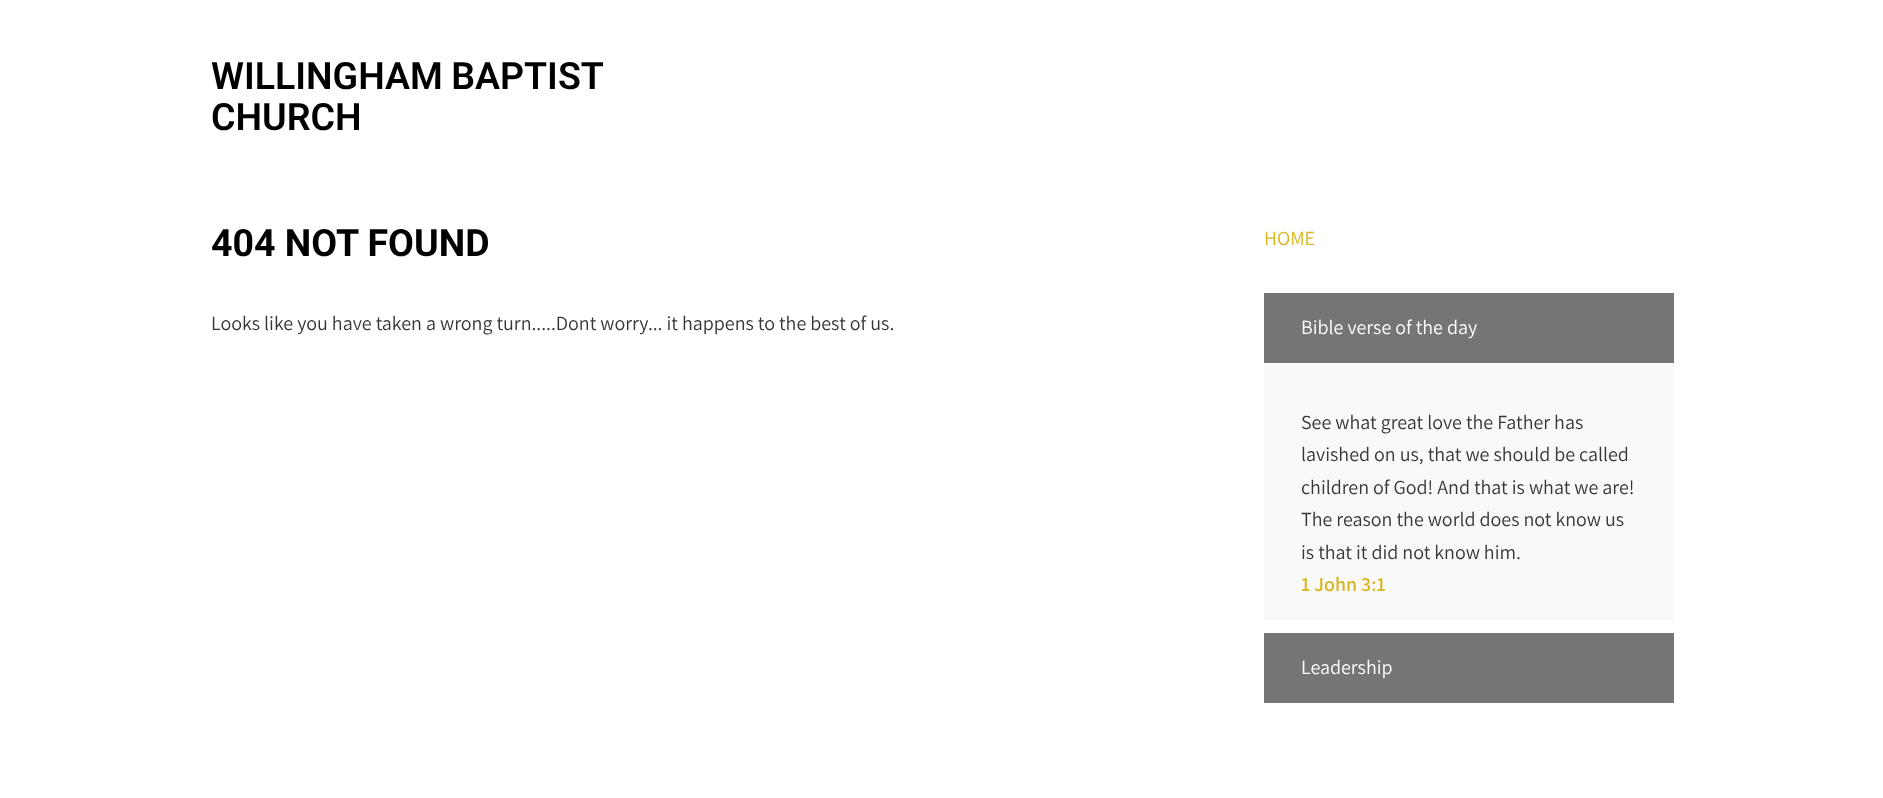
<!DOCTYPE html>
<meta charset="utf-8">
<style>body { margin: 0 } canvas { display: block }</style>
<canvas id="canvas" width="1883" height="798"></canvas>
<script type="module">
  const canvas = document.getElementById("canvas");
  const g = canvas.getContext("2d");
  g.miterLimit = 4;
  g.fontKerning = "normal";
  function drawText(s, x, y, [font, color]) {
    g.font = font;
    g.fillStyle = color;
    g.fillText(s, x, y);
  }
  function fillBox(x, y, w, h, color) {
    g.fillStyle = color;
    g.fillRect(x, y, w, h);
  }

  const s1 = ["600 37.5px Roboto", "#000000"];
  const s2 = ["bold 37.5px Roboto", "#000000"];
  const s3 = ["20px Assistant", "#363636"];
  const s4 = ["20px Assistant", "#D8B61E"];
  const s5 = ["20px Assistant", "#FFFFFF"];
  const s6 = ["600 20px Assistant", "#D8B61E"];

  fillBox(0, 0, 1883, 798, "#FFFFFF");
  g.wordSpacing = "-1px";
  drawText("WILLINGHAM BAPTIST", 211, 89, s1);
  g.wordSpacing = "0px";
  drawText("CHURCH", 211, 130, s1);
  drawText("404 NOT FOUND", 211, 256, s2);
  drawText("Looks like you have taken a wrong turn.....Dont worry... it happens to the best of us.", 211, 330, s3);
  drawText("HOME", 1264, 245, s4);
  fillBox(1264, 293, 410, 70, "#757575");
  drawText("Bible verse of the day", 1301, 334, s5);
  fillBox(1264, 363, 410, 257, "#F9F9F9");
  drawText("See what great love the Father has", 1301, 429, s3);
  drawText("lavished on us, that we should be called", 1301, 461, s3);
  drawText("children of God! And that is what we are!", 1301, 494, s3);
  drawText("The reason the world does not know us", 1301, 526, s3);
  drawText("is that it did not know him.", 1301, 559, s3);
  drawText("1 John 3:1", 1301, 591, s6);
  fillBox(1264, 633, 410, 70, "#757575");
  drawText("Leadership", 1301, 674, s5);
</script>
